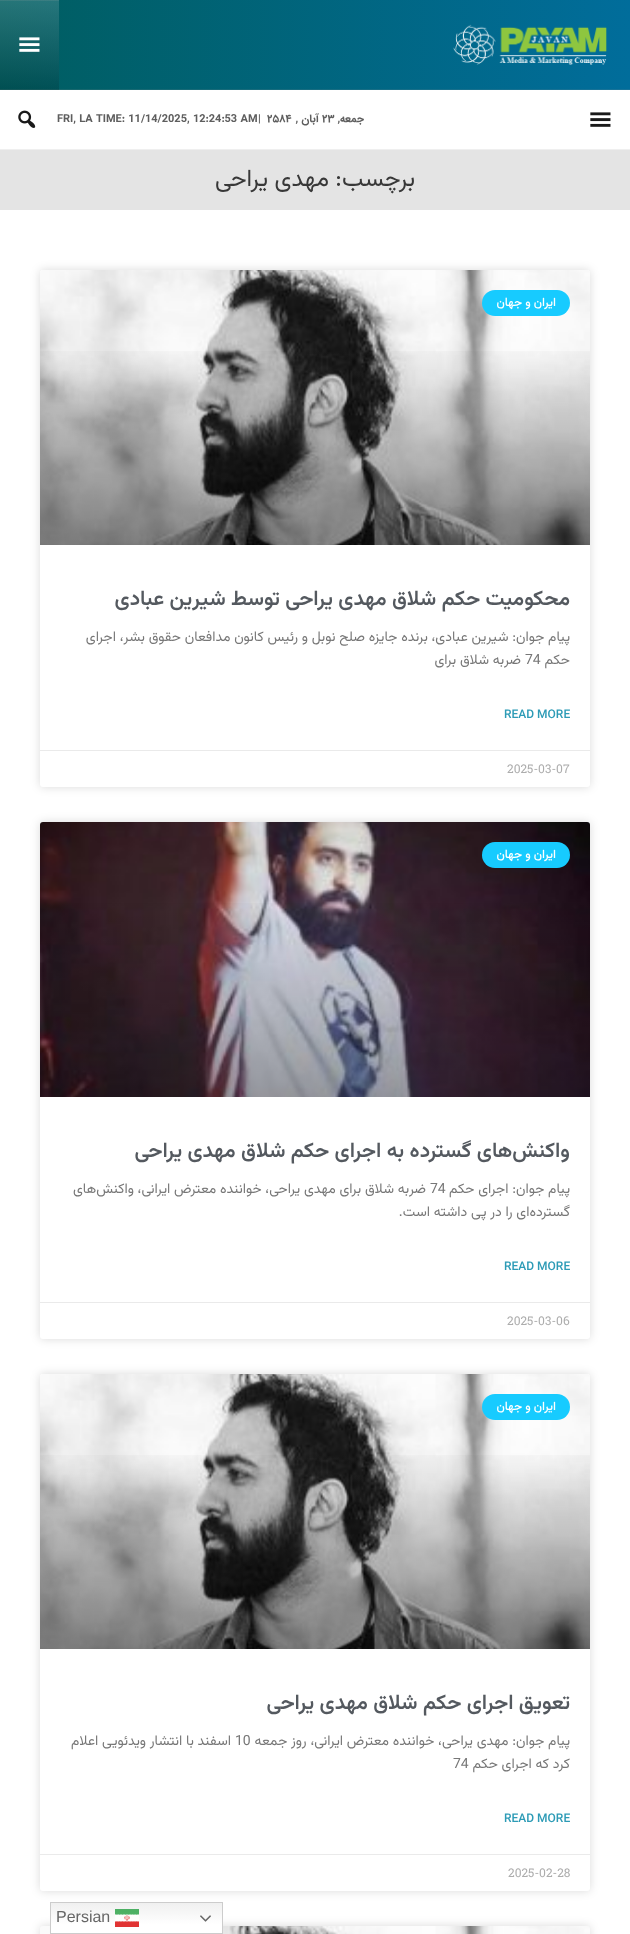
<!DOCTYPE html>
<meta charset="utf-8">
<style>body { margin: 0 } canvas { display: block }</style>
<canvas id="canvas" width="630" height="1934"></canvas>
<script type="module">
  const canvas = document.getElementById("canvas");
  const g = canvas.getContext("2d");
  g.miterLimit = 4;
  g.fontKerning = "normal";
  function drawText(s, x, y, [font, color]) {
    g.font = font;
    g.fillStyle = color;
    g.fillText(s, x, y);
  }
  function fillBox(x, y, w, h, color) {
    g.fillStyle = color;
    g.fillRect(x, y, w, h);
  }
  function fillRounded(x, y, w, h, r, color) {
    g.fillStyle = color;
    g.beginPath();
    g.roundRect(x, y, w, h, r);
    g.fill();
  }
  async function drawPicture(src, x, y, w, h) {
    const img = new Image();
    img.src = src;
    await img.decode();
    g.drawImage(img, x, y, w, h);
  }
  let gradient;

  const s1 = ["bold 11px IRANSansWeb", "#5E5E5E"];
  const s2 = ["24px Vazirmatn", "#383838"];
  const s3 = ["500 12px Vazirmatn", "#FFFFFF"];
  const s4 = ["600 21px Vazirmatn", "#54595F"];
  const s5 = ["14px Vazirmatn", "#777777"];
  const s6 = ["500 12px Roboto", "#2D9BB6"];
  const s7 = ["12px Roboto Slab", "#ADADAD"];
  const s8 = ["16px Liberation Sans", "#666666"];

  fillBox(0, 0, 630, 1934, "#FFFFFF");
  gradient = g.createLinearGradient(630, 45, 0, 45);
  gradient.addColorStop(0, "#016D9B");
  gradient.addColorStop(1, "#005D60");
  g.fillStyle = gradient;
  g.fillRect(0, 0, 630, 89);
  gradient = g.createLinearGradient(630, 45, 0, 45);
  gradient.addColorStop(0, "#17739A");
  gradient.addColorStop(1, "#176668");
  g.fillStyle = gradient;
  g.fillRect(0, 0, 59, 1);
  g.fillRect(0, 89, 630, 1);
  await drawPicture("pic1.png", 453, 24, 154, 41);
  gradient = g.createLinearGradient(29, 0, 30, 90);
  gradient.addColorStop(0, "rgba(255, 255, 255, 0.15)");
  gradient.addColorStop(1, "rgba(0, 0, 0, 0.15)");
  g.fillStyle = gradient;
  g.fillRect(0, 0, 59, 90);
  await drawPicture("pic2.png", 19, 37, 21, 15);
  fillBox(0, 149, 630, 1, "#EFEFEF");
  await drawPicture("pic3.png", 590, 112, 21, 15);
  g.direction = "rtl";
  drawText("جمعه,", 364, 122, s1);
  g.direction = "ltr";
  drawText("۲۳", 322, 122, s1);
  g.direction = "rtl";
  drawText("آبان ,", 319, 122, s1);
  g.direction = "ltr";
  drawText("۲۵۸۴", 267, 122, s1);
  drawText("|", 258, 122, s1);
  drawText("FRI, LA TIME: 11/14/2025, 12:24:53 AM", 57, 122, s1);
  await drawPicture("pic4.png", 18, 110, 18, 18);
  fillBox(0, 150, 630, 60, "#E4E4E4");
  g.direction = "rtl";
  drawText("برچسب: مهدی یراحی", 415, 186, s2);
  g.fillStyle = "rgba(0, 0, 0, 0.15)";
  g.filter = "blur(5px)";
  g.beginPath();
  g.roundRect(40, 270, 550, 517, 3);
  g.fill();
  g.filter = "none";
  fillRounded(40, 270, 550, 517, 3, "#FFFFFF");
  await drawPicture("pic5.png", 40, 270, 550, 275);
  gradient = g.createLinearGradient(315, 545, 315, 270);
  gradient.addColorStop(0, "rgba(0, 0, 0, 0.35)");
  gradient.addColorStop(0.75, "rgba(0, 0, 0, 0)");
  g.fillStyle = gradient;
  g.fillRect(40, 351, 550, 194);
  fillRounded(482, 290, 88, 26, 13, "#17CBFF");
  drawText("ایران و جهان", 556, 306, s3);
  drawText("محکومیت حکم شلاق مهدی یراحی توسط شیرین عبادی", 570, 605, s4);
  drawText("پیام جوان: شیرین عبادی، برنده جایزه صلح نوبل و رئیس کانون مدافعان حقوق بشر، اجرای", 570, 641, s5);
  drawText("حکم", 570, 664, s5);
  g.direction = "ltr";
  drawText("74", 525, 664, s5);
  g.direction = "rtl";
  drawText("ضربه شلاق برای", 521, 664, s5);
  g.direction = "ltr";
  drawText("READ MORE", 504, 718, s6);
  fillBox(40, 750, 550, 1, "#EAEAEA");
  drawText("2025-03-07", 507, 773, s7);
  g.fillStyle = "rgba(0, 0, 0, 0.15)";
  g.filter = "blur(5px)";
  g.beginPath();
  g.roundRect(40, 822, 550, 517, 3);
  g.fill();
  g.filter = "none";
  fillRounded(40, 822, 550, 517, 3, "#FFFFFF");
  await drawPicture("pic6.png", 40, 822, 550, 275);
  gradient = g.createLinearGradient(315, 1097, 315, 822);
  gradient.addColorStop(0, "rgba(0, 0, 0, 0.35)");
  gradient.addColorStop(0.75, "rgba(0, 0, 0, 0)");
  g.fillStyle = gradient;
  g.fillRect(40, 903, 550, 194);
  fillRounded(482, 842, 88, 26, 13, "#17CBFF");
  g.direction = "rtl";
  drawText("ایران و جهان", 556, 858, s3);
  drawText("واکنش‌های گسترده به اجرای حکم شلاق مهدی یراحی", 570, 1157, s4);
  drawText("پیام جوان: اجرای حکم", 570, 1193, s5);
  g.direction = "ltr";
  drawText("74", 430, 1193, s5);
  g.direction = "rtl";
  drawText("ضربه شلاق برای مهدی یراحی، خواننده معترض ایرانی، واکنش‌های", 426, 1193, s5);
  drawText("گسترده‌ای را در پی داشته است.", 570, 1216, s5);
  g.direction = "ltr";
  drawText("READ MORE", 504, 1270, s6);
  fillBox(40, 1302, 550, 1, "#EAEAEA");
  drawText("2025-03-06", 507, 1325, s7);
  g.fillStyle = "rgba(0, 0, 0, 0.15)";
  g.filter = "blur(5px)";
  g.beginPath();
  g.roundRect(40, 1374, 550, 517, 3);
  g.fill();
  g.filter = "none";
  fillRounded(40, 1374, 550, 517, 3, "#FFFFFF");
  await drawPicture("pic5.png", 40, 1374, 550, 275);
  gradient = g.createLinearGradient(315, 1649, 315, 1374);
  gradient.addColorStop(0, "rgba(0, 0, 0, 0.35)");
  gradient.addColorStop(0.75, "rgba(0, 0, 0, 0)");
  g.fillStyle = gradient;
  g.fillRect(40, 1455, 550, 194);
  fillRounded(482, 1394, 88, 26, 13, "#17CBFF");
  g.direction = "rtl";
  drawText("ایران و جهان", 556, 1410, s3);
  drawText("تعویق اجرای حکم شلاق مهدی یراحی", 570, 1709, s4);
  drawText("پیام جوان: مهدی یراحی، خواننده معترض ایرانی، روز جمعه", 570, 1745, s5);
  g.direction = "ltr";
  drawText("10", 235, 1745, s5);
  g.direction = "rtl";
  drawText("اسفند با انتشار ویدئویی اعلام", 231, 1745, s5);
  drawText("کرد که اجرای حکم", 570, 1768, s5);
  g.direction = "ltr";
  drawText("74", 453, 1768, s5);
  drawText("READ MORE", 504, 1822, s6);
  fillBox(40, 1854, 550, 1, "#EAEAEA");
  drawText("2025-02-28", 508, 1877, s7);
  g.fillStyle = "rgba(0, 0, 0, 0.15)";
  g.filter = "blur(5px)";
  g.beginPath();
  g.roundRect(40, 1926, 550, 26, 3);
  g.fill();
  g.filter = "none";
  await drawPicture("pic7.png", 40, 1926, 550, 8);
  gradient = g.createLinearGradient(137, 1902, 137, 1934);
  gradient.addColorStop(0, "#EFEFEF");
  gradient.addColorStop(0.7, "#FFFFFF");
  g.fillStyle = gradient;
  g.fillRect(51, 1903, 171, 30);
  g.strokeStyle = "#CCCCCC";
  g.strokeRect(50.5, 1902.5, 172, 31);
  await drawPicture("pic8.png", 200, 1915, 11, 7);
  await drawPicture("pic9.png", 115, 1909, 24, 18);
  drawText("Persian", 56, 1922, s8);
</script>
